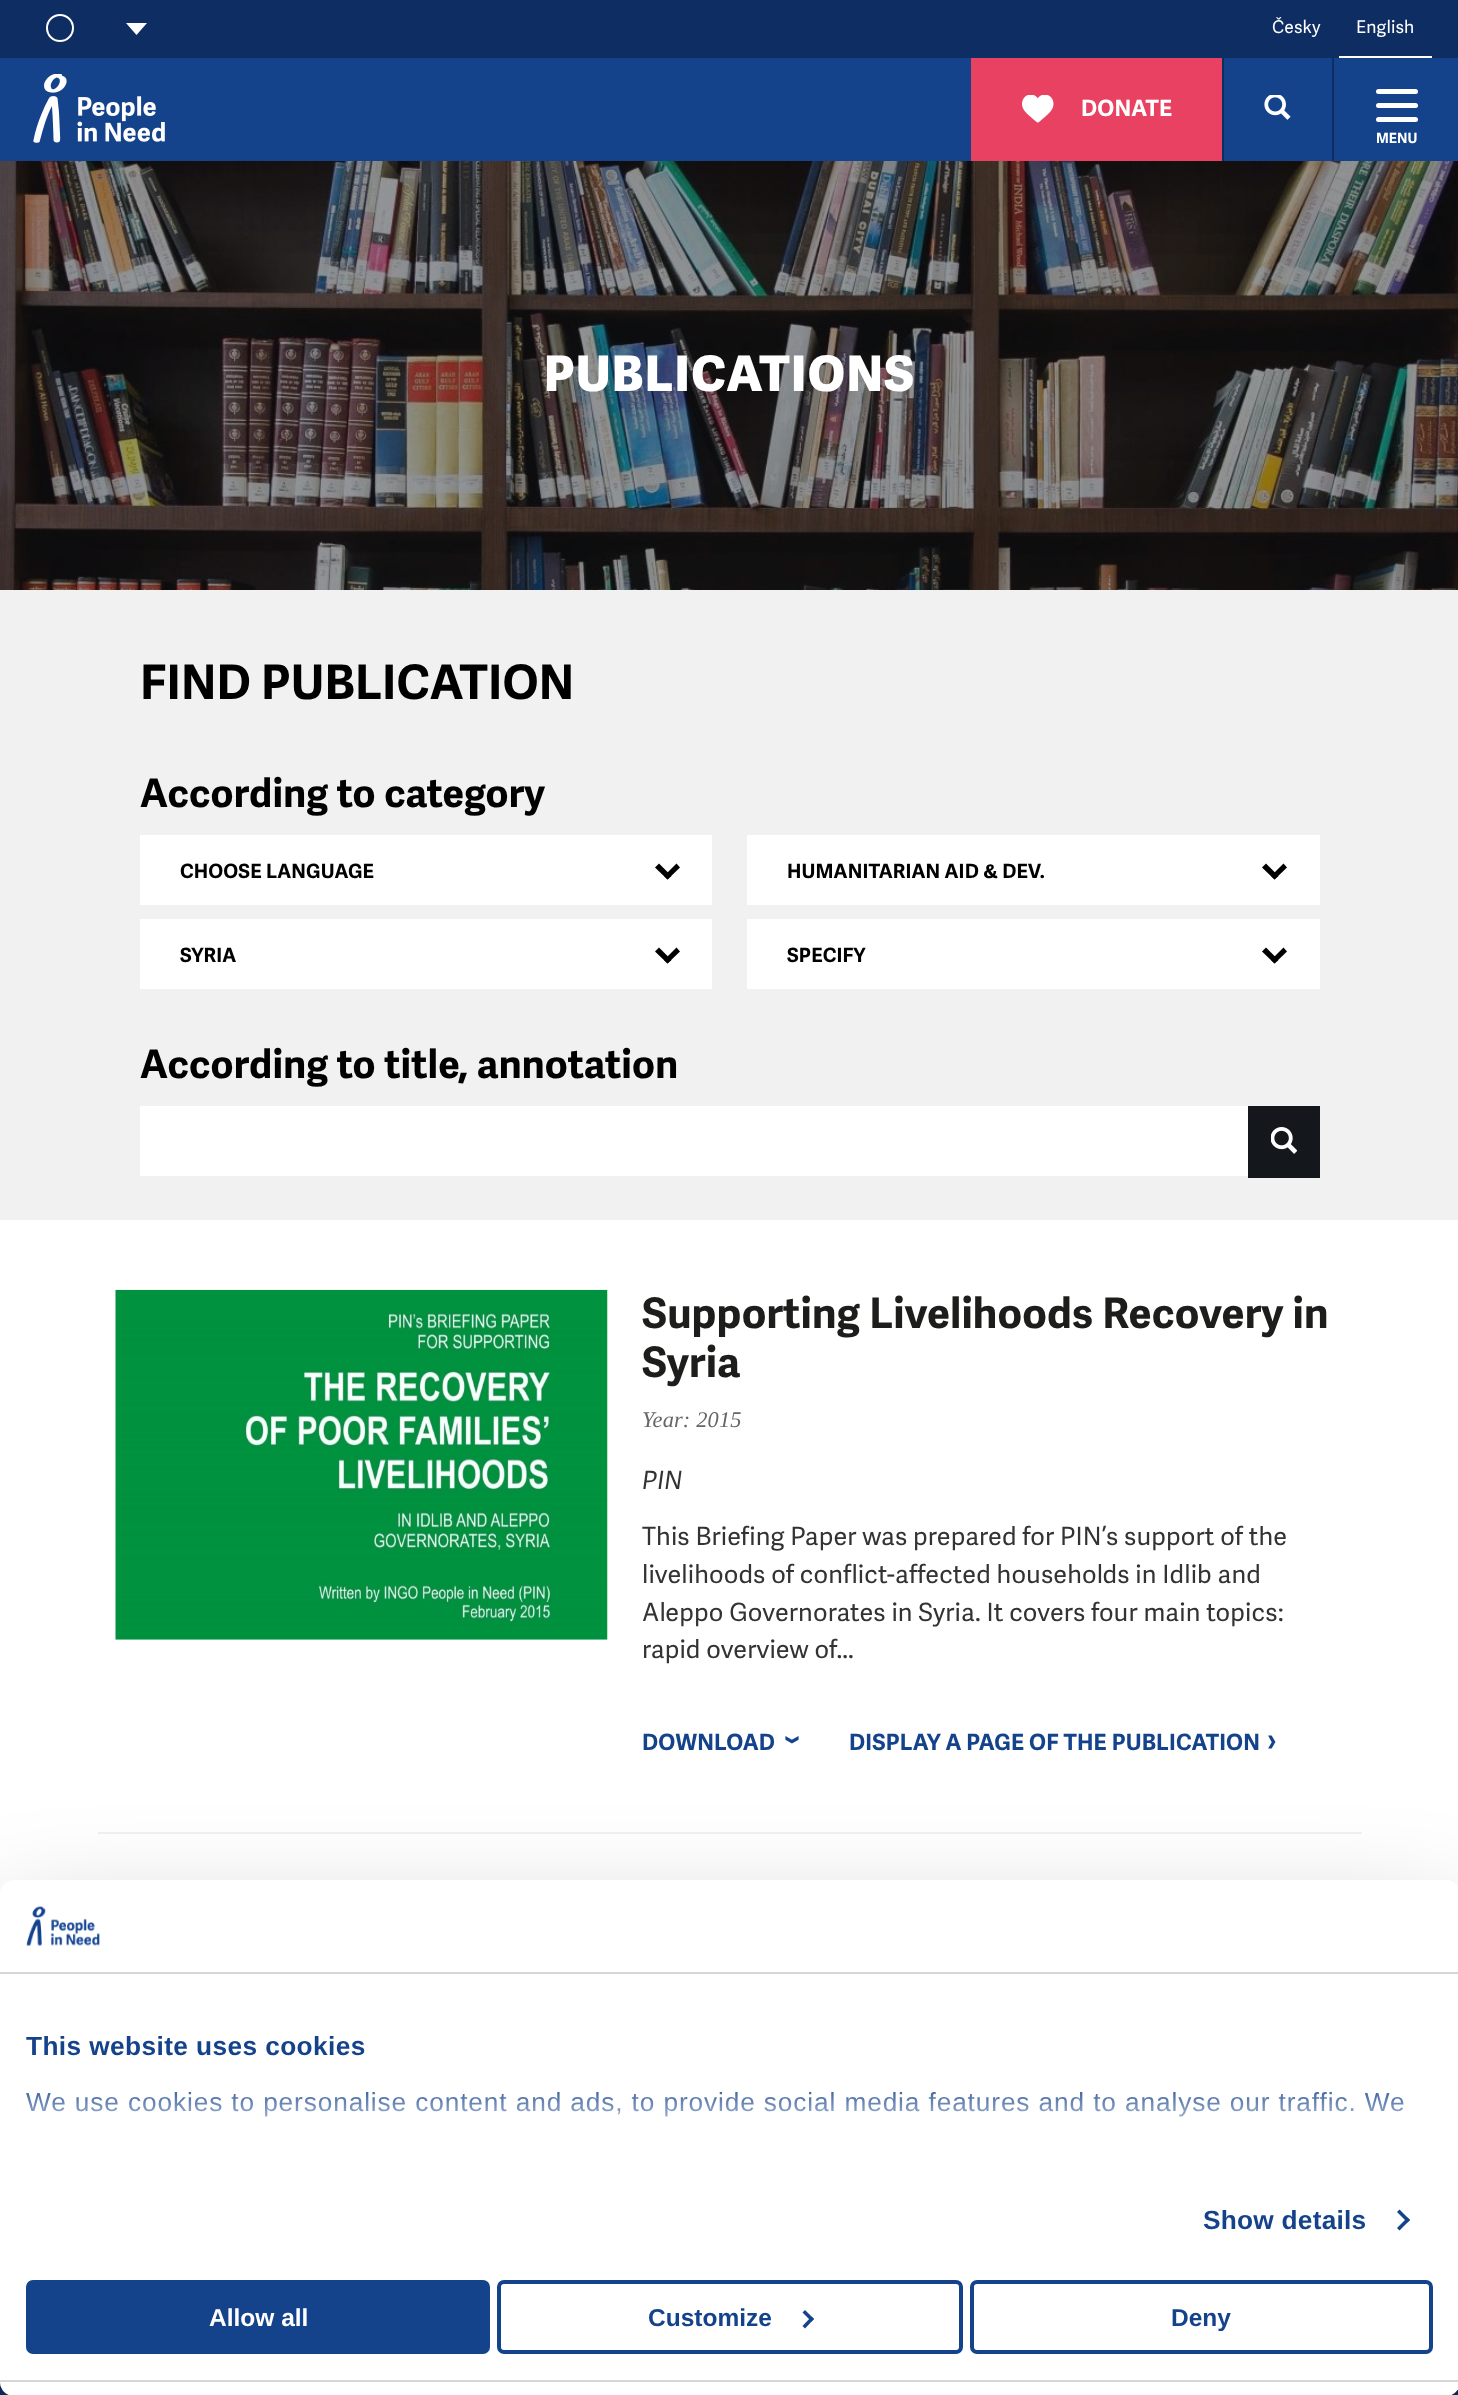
<!DOCTYPE html>
<meta charset="utf-8">
<style>body { margin: 0 } canvas { display: block }</style>
<canvas id="canvas" width="1458" height="2395"></canvas>
<script type="module">
  const canvas = document.getElementById("canvas");
  const g = canvas.getContext("2d");
  g.miterLimit = 4;
  g.fontKerning = "normal";
  function drawText(s, x, y, [font, color]) {
    g.font = font;
    g.fillStyle = color;
    g.fillText(s, x, y);
  }
  function fillBox(x, y, w, h, color) {
    g.fillStyle = color;
    g.fillRect(x, y, w, h);
  }
  function fillRounded(x, y, w, h, r, color) {
    g.fillStyle = color;
    g.beginPath();
    g.roundRect(x, y, w, h, r);
    g.fill();
  }
  async function drawPicture(src, x, y, w, h) {
    const img = new Image();
    img.src = src;
    await img.decode();
    g.drawImage(img, x, y, w, h);
  }
  let gradient;

  const s1 = ["17.5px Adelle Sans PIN", "#FFFFFF"];
  const s2 = ["bold 22.4px Adelle Sans PIN", "#FFFFFF"];
  const s3 = ["bold 14px Adelle Sans PIN", "#FFFFFF"];
  const s4 = ["800 49px Adelle Sans PIN", "#FFFFFF"];
  const s5 = ["bold 47.5px Adelle Sans PIN", "#000000"];
  const s6 = ["bold 39.25px Adelle Sans PIN", "#000000"];
  const s7 = ["bold 19.6px Adelle Sans PIN", "#000000"];
  const s8 = ["bold 42px Adelle Sans PIN", "#1D1D1B"];
  const s9 = ["italic 22.4px Liberation Serif", "#666666"];
  const s10 = ["italic 25.2px Adelle Sans PIN", "#333333"];
  const s11 = ["25.2px Adelle Sans PIN", "#333333"];
  const s12 = ["bold 22.4px Adelle Sans PIN", "#14428B"];
  const s13 = ["43px Adelle Sans PIN", "#14428B"];
  const s14 = ["bold 26.25px Liberation Sans", "#14428B"];
  const s15 = ["26.25px Liberation Sans", "#14428B"];
  const s16 = ["bold 24.5px Liberation Sans", "#FFFFFF"];
  const s17 = ["bold 24.5px Liberation Sans", "#14428B"];

  fillBox(0, 0, 1458, 2395, "#FFFFFF");
  fillBox(0, 58, 1458, 103, "#14428B");
  fillBox(1332, 56, 2, 105, "#0E2E63");
  fillBox(1222, 56, 2, 105, "#0E2E63");
  fillBox(0, 0, 1458, 58, "#0E2E63");
  g.beginPath();
  g.arc(60, 28, 13, 0, Math.PI * 2);
  g.strokeStyle = "#FFFFFF";
  g.lineWidth = 2;
  g.stroke();
  g.fillStyle = "#FFFFFF";
  g.beginPath();
  g.moveTo(126, 23);
  g.lineTo(147, 23);
  g.lineTo(136.5, 35);
  g.closePath();
  g.fill();
  g.letterSpacing = "0.15px";
  drawText("Česky", 1272, 33, s1);
  fillBox(1339, 56, 93, 2, "#FFFFFF");
  drawText("English", 1356, 33, s1);
  await drawPicture("pic1.png", 33, 74, 132, 69);
  fillBox(971, 58, 251, 103, "#E94161");
  await drawPicture("pic2.png", 1022, 95, 32, 28);
  drawText("DONATE", 1081, 116, s2);
  await drawPicture("pic3.png", 1264, 95, 27, 25);
  fillRounded(1376, 89, 42, 5, 2.5, "#FFFFFF");
  fillRounded(1376, 103, 42, 5, 2.5, "#FFFFFF");
  fillRounded(1376, 117, 42, 5, 2.5, "#FFFFFF");
  g.letterSpacing = "0px";
  drawText("MENU", 1376, 143, s3);
  await drawPicture("pic4.png", 0, 161, 1458, 429);
  g.letterSpacing = "1.4px";
  drawText("PUBLICATIONS", 544, 391, s4);
  fillBox(0, 590, 1458, 630, "#F1F1F1");
  g.letterSpacing = "0.15px";
  drawText("FIND PUBLICATION", 140, 699, s5);
  drawText("According to category", 140, 807, s6);
  fillBox(140, 835, 572, 70, "#FFFFFF");
  drawText("CHOOSE LANGUAGE", 180, 878, s7);
  g.beginPath();
  g.moveTo(664, 876);
  g.lineTo(676.5, 863.5);
  g.lineTo(680, 867.5);
  g.lineTo(667.5, 879.5);
  g.closePath();
  g.fill();
  g.beginPath();
  g.moveTo(659, 863.5);
  g.lineTo(671.5, 876);
  g.lineTo(667.5, 879.5);
  g.lineTo(655, 867.5);
  g.closePath();
  g.fill();
  fillBox(747, 835, 573, 70, "#FFFFFF");
  drawText("HUMANITARIAN AID & DEV.", 787, 878, s7);
  g.beginPath();
  g.moveTo(1271, 876);
  g.lineTo(1283.5, 863.5);
  g.lineTo(1287, 867.5);
  g.lineTo(1274.5, 879.5);
  g.closePath();
  g.fill();
  g.beginPath();
  g.moveTo(1266, 863.5);
  g.lineTo(1278.5, 876);
  g.lineTo(1274.5, 879.5);
  g.lineTo(1262, 867.5);
  g.closePath();
  g.fill();
  fillBox(140, 919, 572, 70, "#FFFFFF");
  drawText("SYRIA", 180, 962, s7);
  g.beginPath();
  g.moveTo(664, 960);
  g.lineTo(676.5, 947.5);
  g.lineTo(680, 951.5);
  g.lineTo(667.5, 963.5);
  g.closePath();
  g.fill();
  g.beginPath();
  g.moveTo(659, 947.5);
  g.lineTo(671.5, 960);
  g.lineTo(667.5, 963.5);
  g.lineTo(655, 951.5);
  g.closePath();
  g.fill();
  fillBox(747, 919, 573, 70, "#FFFFFF");
  drawText("SPECIFY", 787, 962, s7);
  g.beginPath();
  g.moveTo(1271, 960);
  g.lineTo(1283.5, 947.5);
  g.lineTo(1287, 951.5);
  g.lineTo(1274.5, 963.5);
  g.closePath();
  g.fill();
  g.beginPath();
  g.moveTo(1266, 947.5);
  g.lineTo(1278.5, 960);
  g.lineTo(1274.5, 963.5);
  g.lineTo(1262, 951.5);
  g.closePath();
  g.fill();
  drawText("According to title, annotation", 140, 1078, s6);
  fillBox(140, 1106, 1108, 70, "#FFFFFF");
  fillBox(1248, 1106, 72, 72, "#14171B");
  await drawPicture("pic5.png", 1271, 1127, 26, 27);
  fillBox(98, 1832, 1264, 2, "#F1F1F1");
  await drawPicture("pic6.png", 115, 1289, 493, 351);
  drawText("Supporting Livelihoods Recovery in", 642, 1328, s8);
  drawText("Syria", 642, 1377, s8);
  drawText("Year: 2015", 642, 1427, s9);
  drawText("PIN", 642, 1489, s10);
  drawText("This Briefing Paper was prepared for PIN’s support of the", 642, 1545, s11);
  drawText("livelihoods of conflict-affected households in Idlib and", 642, 1583, s11);
  drawText("Aleppo Governorates in Syria. It covers four main topics:", 642, 1621, s11);
  drawText("rapid overview of...", 642, 1658, s11);
  drawText("DOWNLOAD", 642, 1750, s12);
  g.font = "43px Adelle Sans PIN";
  g.save();
  g.translate(781, 1734);
  g.rotate(90 * Math.PI / 180);
  g.fillText("›", 0, 0);
  g.restore();
  drawText("DISPLAY A PAGE OF THE PUBLICATION", 849, 1750, s12);
  drawText("›", 1266, 1753, s13);
  fillBox(0, 2382, 1458, 13, "#0E2E63");
  g.fillStyle = "rgba(0, 0, 0, 0.3)";
  g.filter = "blur(59.5px)";
  g.beginPath();
  g.roundRect(0, 1936, 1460, 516, 14);
  g.fill();
  g.filter = "none";
  fillRounded(0, 1880, 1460, 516, 14, "#FFFFFF");
  fillBox(0, 1972, 1458, 2, "#D6D6D6");
  await drawPicture("pic7.png", 26, 1906, 74, 40);
  g.letterSpacing = "0.4px";
  drawText("This website uses cookies", 26, 2055, s14);
  g.letterSpacing = "0.88px";
  drawText("We use cookies to personalise content and ads, to provide social media features and to analyse our traffic. We", 26, 2111, s15);
  gradient = g.createLinearGradient(718, 2184, 718, 2079);
  gradient.addColorStop(0, "#FFFFFF");
  gradient.addColorStop(0.5, "rgba(255, 255, 255, 0.8)");
  gradient.addColorStop(1, "rgba(255, 255, 255, 0)");
  g.fillStyle = gradient;
  g.fillRect(26, 2092, 1378, 25);
  g.letterSpacing = "0.25px";
  drawText("Show details", 1203, 2229, s14);
  g.beginPath();
  g.moveTo(1399.5, 2209.5);
  g.lineTo(1410, 2220);
  g.lineTo(1407.5, 2222.5);
  g.lineTo(1397, 2212);
  g.closePath();
  g.fill();
  g.beginPath();
  g.moveTo(1407.5, 2217.5);
  g.lineTo(1410, 2220);
  g.lineTo(1399.5, 2230.5);
  g.lineTo(1397, 2228);
  g.closePath();
  g.fill();
  fillBox(0, 2380, 1458, 2, "#D6D6D6");
  g.fillStyle = "#14428B";
  g.beginPath();
  g.roundRect(28, 2282, 460, 70, 5);
  g.fill();
  g.strokeStyle = "#14428B";
  g.lineWidth = 4;
  g.stroke();
  g.letterSpacing = "0px";
  drawText("Allow all", 209, 2326, s16);
  g.beginPath();
  g.roundRect(499, 2282, 462, 70, 5);
  g.stroke();
  drawText("Customize", 648, 2326, s17);
  g.beginPath();
  g.moveTo(805, 2310);
  g.lineTo(814, 2319);
  g.lineTo(811.5, 2321.5);
  g.lineTo(802.5, 2312.5);
  g.closePath();
  g.fill();
  g.beginPath();
  g.moveTo(811.5, 2316.5);
  g.lineTo(814, 2319);
  g.lineTo(805, 2328.5);
  g.lineTo(802.5, 2326);
  g.closePath();
  g.fill();
  g.beginPath();
  g.roundRect(972, 2282, 459, 70, 5);
  g.stroke();
  drawText("Deny", 1171, 2326, s17);
</script>
